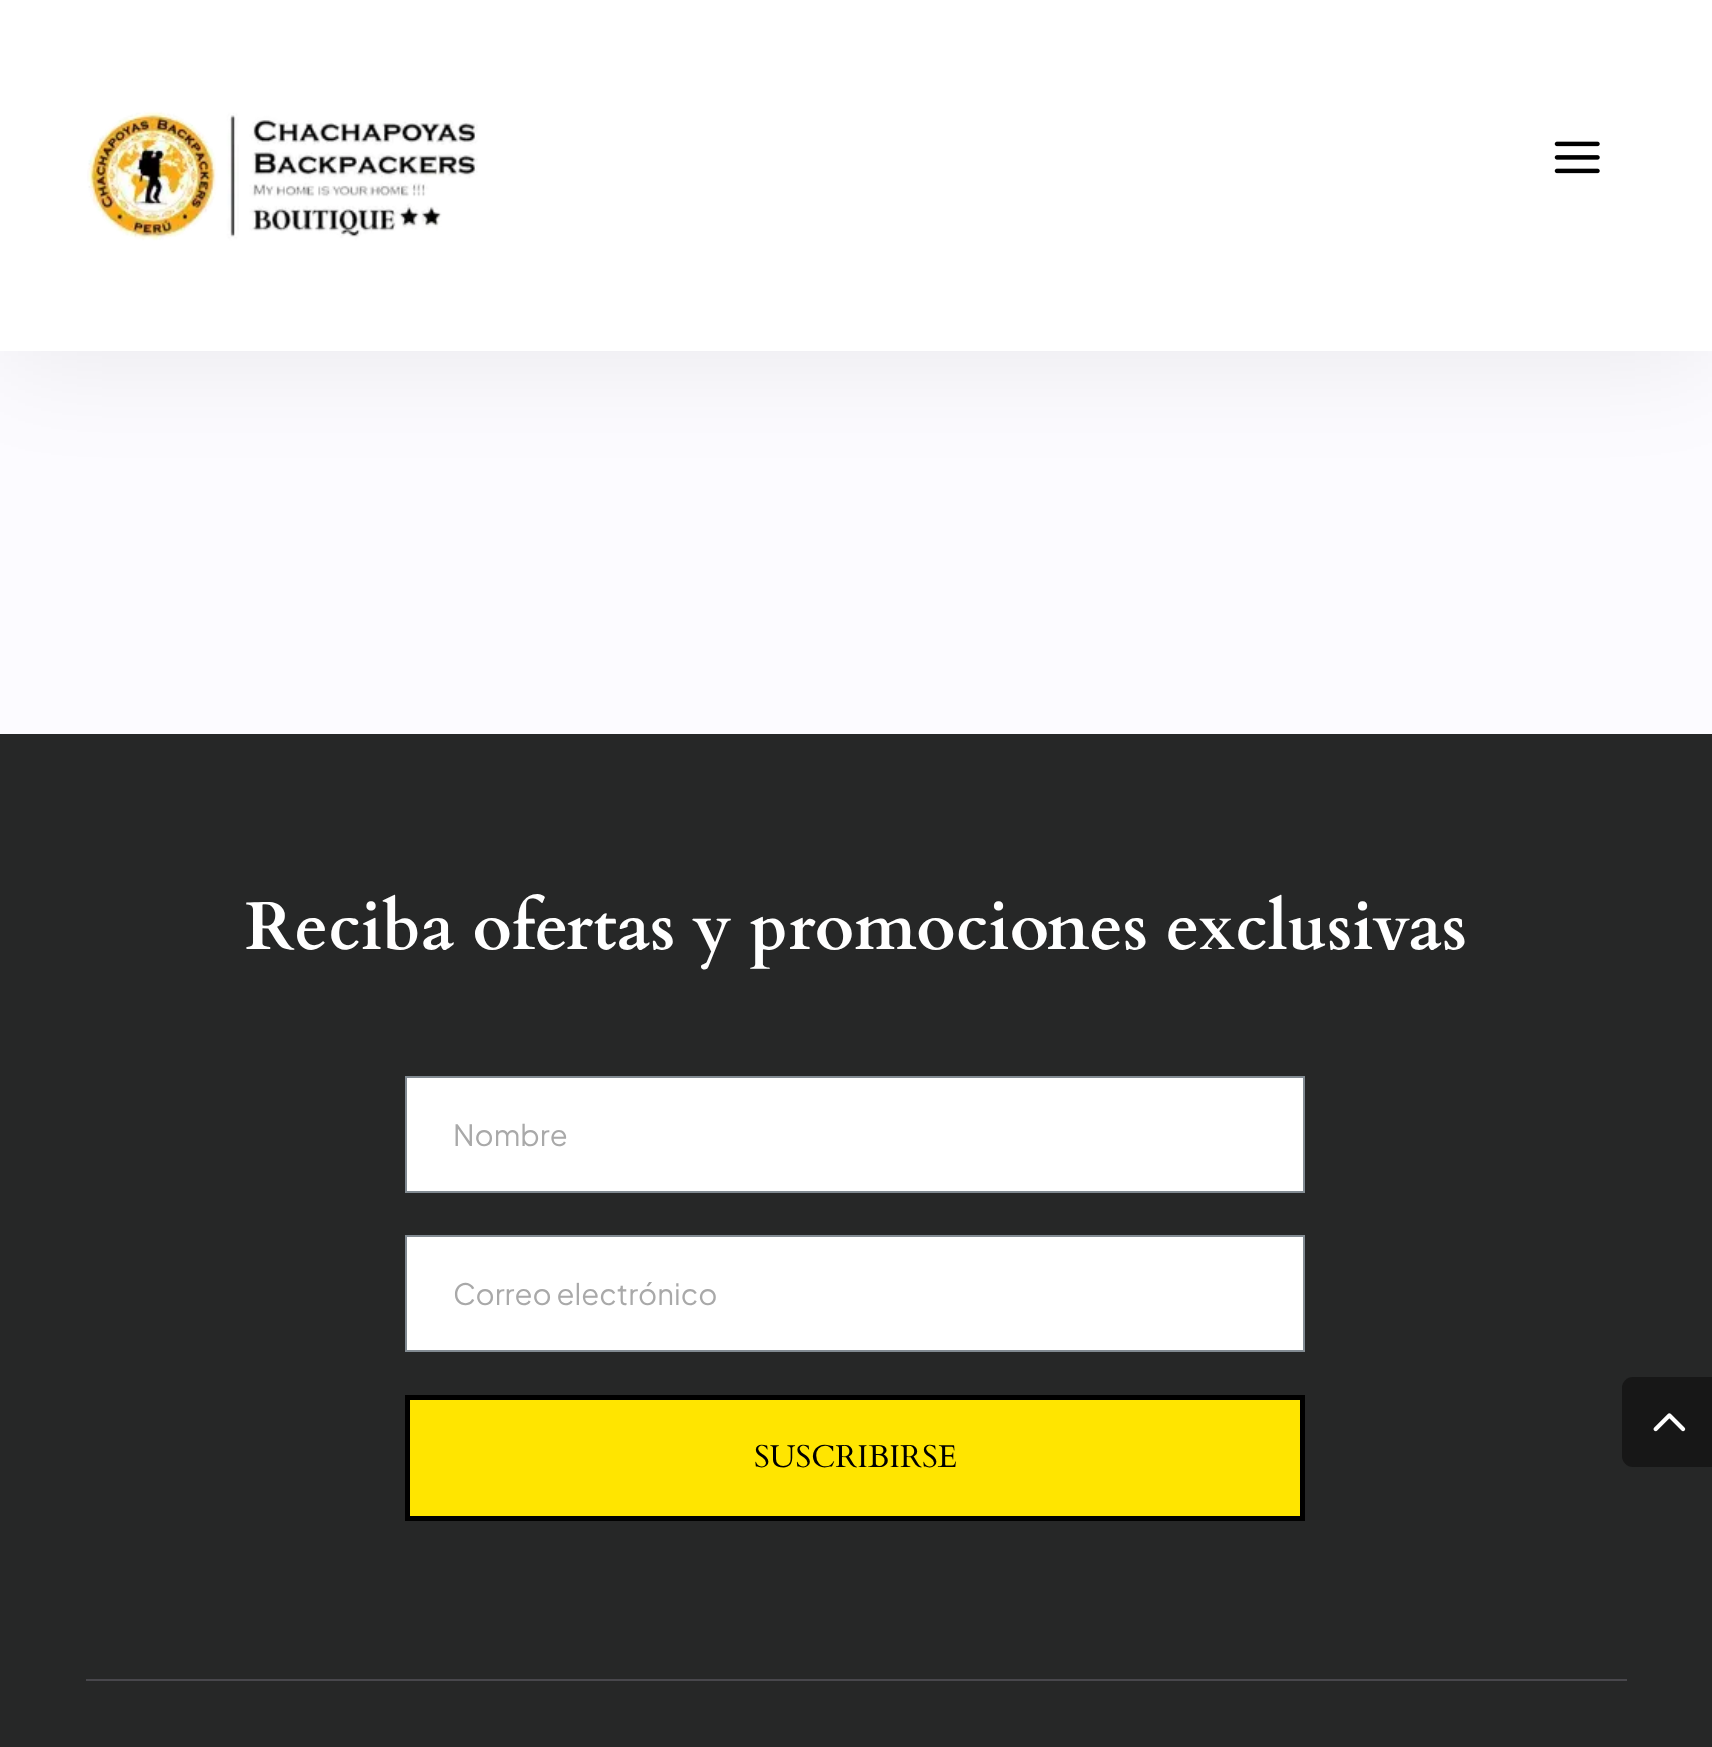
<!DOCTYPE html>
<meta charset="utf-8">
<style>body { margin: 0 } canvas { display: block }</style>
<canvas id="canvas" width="1712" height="1747"></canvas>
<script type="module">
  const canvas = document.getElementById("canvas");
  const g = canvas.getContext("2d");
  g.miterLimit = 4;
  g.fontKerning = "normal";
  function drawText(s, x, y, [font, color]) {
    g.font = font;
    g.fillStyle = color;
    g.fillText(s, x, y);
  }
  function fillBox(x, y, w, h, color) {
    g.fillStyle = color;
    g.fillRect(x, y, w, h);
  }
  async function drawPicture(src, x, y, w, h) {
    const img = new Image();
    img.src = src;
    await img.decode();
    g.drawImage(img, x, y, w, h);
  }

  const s1 = ["bold 67.5px Cardo", "#FFFFFF"];
  const s2 = ["29.25px Plus Jakarta Sans", "#A9A9A9"];
  const s3 = ["31.5px Cardo", "#000000"];

  fillBox(0, 0, 1712, 1747, "#FCFBFF");
  g.fillStyle = "rgba(0, 0, 0, 0.08)";
  g.filter = "blur(56px)";
  g.beginPath();
  g.rect(0, 5, 1712, 351);
  g.fill();
  g.filter = "none";
  fillBox(0, 0, 1712, 351, "#FFFFFF");
  await drawPicture("pic1.png", 87, 111, 391, 130);
  await drawPicture("pic2.png", 1554, 141, 46, 33);
  fillBox(0, 734, 1712, 1013, "#262727");
  drawText("Reciba ofertas y promociones exclusivas", 245, 949, s1);
  g.beginPath();
  g.rect(406, 1077, 898, 115);
  g.fill();
  g.strokeStyle = "#818A91";
  g.lineWidth = 2;
  g.stroke();
  drawText("Nombre", 453, 1146, s2);
  g.fillStyle = "#FFFFFF";
  g.beginPath();
  g.rect(406, 1236, 898, 115);
  g.fill();
  g.stroke();
  drawText("Correo electrónico", 453, 1305, s2);
  g.fillStyle = "#FFE500";
  g.beginPath();
  g.rect(407.5, 1397.5, 895, 121);
  g.fill();
  g.strokeStyle = "#000000";
  g.lineWidth = 5;
  g.stroke();
  drawText("SUSCRIBIRSE", 754, 1467, s3);
  fillBox(86, 1679, 1541, 2, "#48474C");
  g.fillStyle = "#171717";
  g.beginPath();
  g.roundRect(1622, 1377, 90, 90, [11, 0, 0, 11]);
  g.fill();
  await drawPicture("pic3.png", 1653, 1413, 33, 19);
</script>
